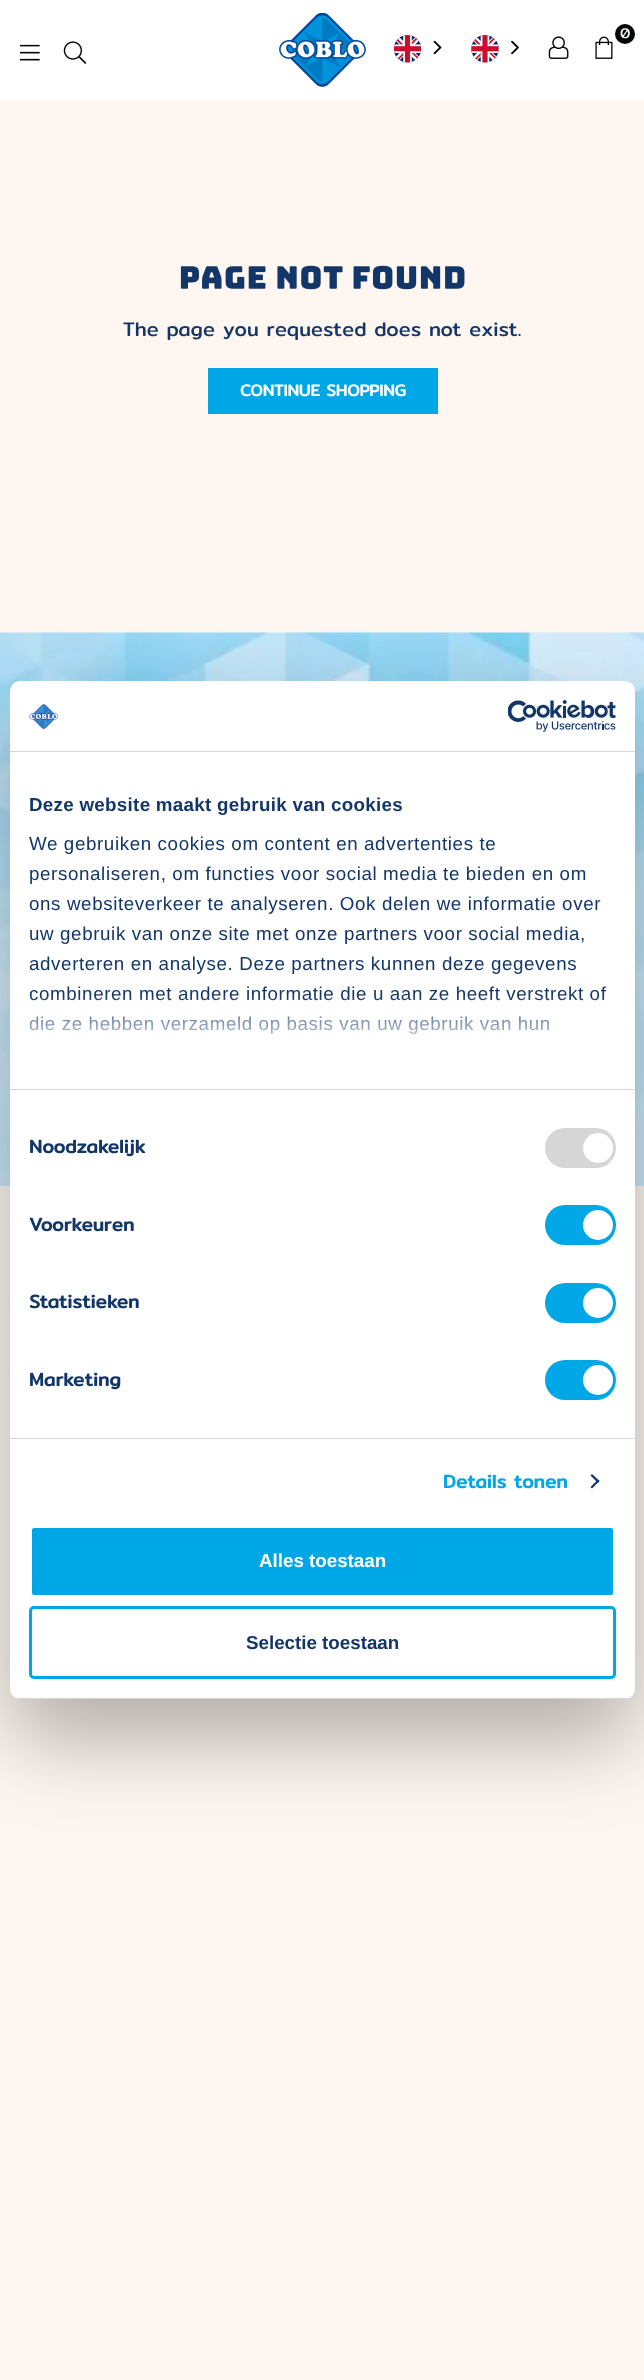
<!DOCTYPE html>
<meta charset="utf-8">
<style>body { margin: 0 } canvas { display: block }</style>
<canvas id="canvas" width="644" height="2380"></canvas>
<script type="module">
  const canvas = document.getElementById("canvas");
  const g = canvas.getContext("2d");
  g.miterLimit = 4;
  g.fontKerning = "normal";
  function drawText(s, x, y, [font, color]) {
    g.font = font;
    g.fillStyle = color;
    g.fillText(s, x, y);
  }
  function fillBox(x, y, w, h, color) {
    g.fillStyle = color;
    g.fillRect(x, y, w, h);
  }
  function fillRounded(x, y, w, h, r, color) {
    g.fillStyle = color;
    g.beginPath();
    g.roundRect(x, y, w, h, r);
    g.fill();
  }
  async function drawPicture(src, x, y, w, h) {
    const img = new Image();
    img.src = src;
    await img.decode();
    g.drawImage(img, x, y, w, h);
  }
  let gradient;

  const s1 = ["14px Mitr", "#FFFFFF"];
  const s2 = ["20px Mitr", "#133668"];
  const s3 = ["bold 16.25px Mitr", "#FFFFFF"];
  const s4 = ["bold 18.75px Liberation Sans", "#133668"];
  const s5 = ["18.75px Liberation Sans", "#133668"];
  const s6 = ["bold 18.75px Mitr", "#133668"];
  const s7 = ["bold 18.75px Mitr", "#00A7E7"];
  const s8 = ["bold 18.75px Liberation Sans", "#FFFFFF"];

  fillBox(0, 0, 644, 2380, "#FDF6F1");
  fillBox(0, 0, 644, 100, "#FFFFFF");
  await drawPicture("pic1.png", 279, 13, 87, 74);
  g.fillStyle = "#030505";
  g.beginPath();
  g.arc(625, 34, 10, 0, Math.PI * 2);
  g.fill();
  drawText("0", 620, 38, s1);
  await drawPicture("pic2.png", 595, 36, 18, 23);
  await drawPicture("pic3.png", 394, 35, 27, 28);
  await drawPicture("pic4.png", 433, 40, 9, 15);
  await drawPicture("pic5.png", 471, 35, 28, 28);
  await drawPicture("pic6.png", 511, 40, 8, 15);
  await drawPicture("pic7.png", 548, 36, 21, 23);
  await drawPicture("pic8.png", 20, 44, 20, 17);
  await drawPicture("pic9.png", 63, 41, 24, 23);
  await drawPicture("pic10.png", 180, 265, 285, 25);
  drawText("The page you requested does not exist.", 123, 336, s2);
  fillBox(208, 368, 230, 46, "#00A6E6");
  drawText("CONTINUE SHOPPING", 240, 396, s3);
  await drawPicture("pic11.png", 0, 632, 644, 554);
  g.fillStyle = "rgba(0, 0, 0, 0.3)";
  g.filter = "blur(42.5px)";
  g.beginPath();
  g.roundRect(10, 721, 625, 1018, 10);
  g.fill();
  g.filter = "none";
  fillRounded(10, 681, 625, 1018, 10, "#FFFFFF");
  fillBox(10, 751, 625, 1, "#D6D6D6");
  await drawPicture("pic12.png", 29, 704, 30, 26);
  await drawPicture("pic13.png", 508, 700, 108, 32);
  fillBox(10, 1089, 625, 1, "#D6D6D6");
  g.letterSpacing = "0.3px";
  drawText("Deze website maakt gebruik van cookies", 29, 811, s4);
  g.letterSpacing = "0.62px";
  drawText("We gebruiken cookies om content en advertenties te", 29, 850, s5);
  drawText("personaliseren, om functies voor social media te bieden en om", 29, 880, s5);
  drawText("ons websiteverkeer te analyseren. Ook delen we informatie over", 29, 910, s5);
  drawText("uw gebruik van onze site met onze partners voor social media,", 29, 940, s5);
  drawText("adverteren en analyse. Deze partners kunnen deze gegevens", 29, 970, s5);
  drawText("combineren met andere informatie die u aan ze heeft verstrekt of", 29, 1000, s5);
  drawText("die ze hebben verzameld op basis van uw gebruik van hun", 29, 1030, s5);
  gradient = g.createLinearGradient(314, 1089, 314, 995);
  gradient.addColorStop(0, "#FFFFFF");
  gradient.addColorStop(0.5, "rgba(255, 255, 255, 0.8)");
  gradient.addColorStop(1, "rgba(255, 255, 255, 0)");
  g.fillStyle = gradient;
  g.fillRect(29, 996, 575, 38);
  fillBox(10, 1438, 625, 1, "#D6D6D6");
  g.letterSpacing = "0.1px";
  drawText("Noodzakelijk", 29, 1153, s6);
  fillRounded(545, 1128, 71, 40, 20, "#D6D6D6");
  g.fillStyle = "#FFFFFF";
  g.beginPath();
  g.arc(598, 1148, 15, 0, Math.PI * 2);
  g.fill();
  drawText("Voorkeuren", 29, 1231, s6);
  fillRounded(545, 1205, 71, 40, 20, "#00A7E7");
  g.fillStyle = "#FFFFFF";
  g.beginPath();
  g.arc(598, 1225, 15, 0, Math.PI * 2);
  g.fill();
  drawText("Statistieken", 29, 1308, s6);
  fillRounded(545, 1283, 71, 40, 20, "#00A7E7");
  g.fillStyle = "#FFFFFF";
  g.beginPath();
  g.arc(598, 1303, 15, 0, Math.PI * 2);
  g.fill();
  drawText("Marketing", 29, 1386, s6);
  fillRounded(545, 1360, 71, 40, 20, "#00A7E7");
  g.fillStyle = "#FFFFFF";
  g.beginPath();
  g.arc(598, 1380, 15, 0, Math.PI * 2);
  g.fill();
  drawText("Details tonen", 443, 1488, s7);
  g.fillStyle = "#133668";
  g.beginPath();
  g.moveTo(592, 1474);
  g.lineTo(599.5, 1481);
  g.lineTo(598, 1483);
  g.lineTo(590.5, 1475.5);
  g.closePath();
  g.fill();
  g.beginPath();
  g.moveTo(598, 1479.5);
  g.lineTo(599.5, 1481);
  g.lineTo(592, 1488.5);
  g.lineTo(590.5, 1487);
  g.closePath();
  g.fill();
  g.save();
  g.beginPath();
  g.roundRect(10, 681, 625, 1018, 10);
  g.clip();
  fillBox(10, 1698, 625, 1, "#D6D6D6");
  g.restore();
  g.fillStyle = "#00A7E7";
  g.beginPath();
  g.roundRect(30.5, 1526.5, 584, 70, 3.5);
  g.fill();
  g.strokeStyle = "#FFFFFF";
  g.lineWidth = 3;
  g.stroke();
  g.letterSpacing = "0px";
  drawText("Alles toestaan", 259, 1567, s8);
  g.beginPath();
  g.roundRect(30.5, 1607.5, 584, 70, 3.5);
  g.strokeStyle = "#00A7E7";
  g.stroke();
  drawText("Selectie toestaan", 246, 1649, s4);
</script>
